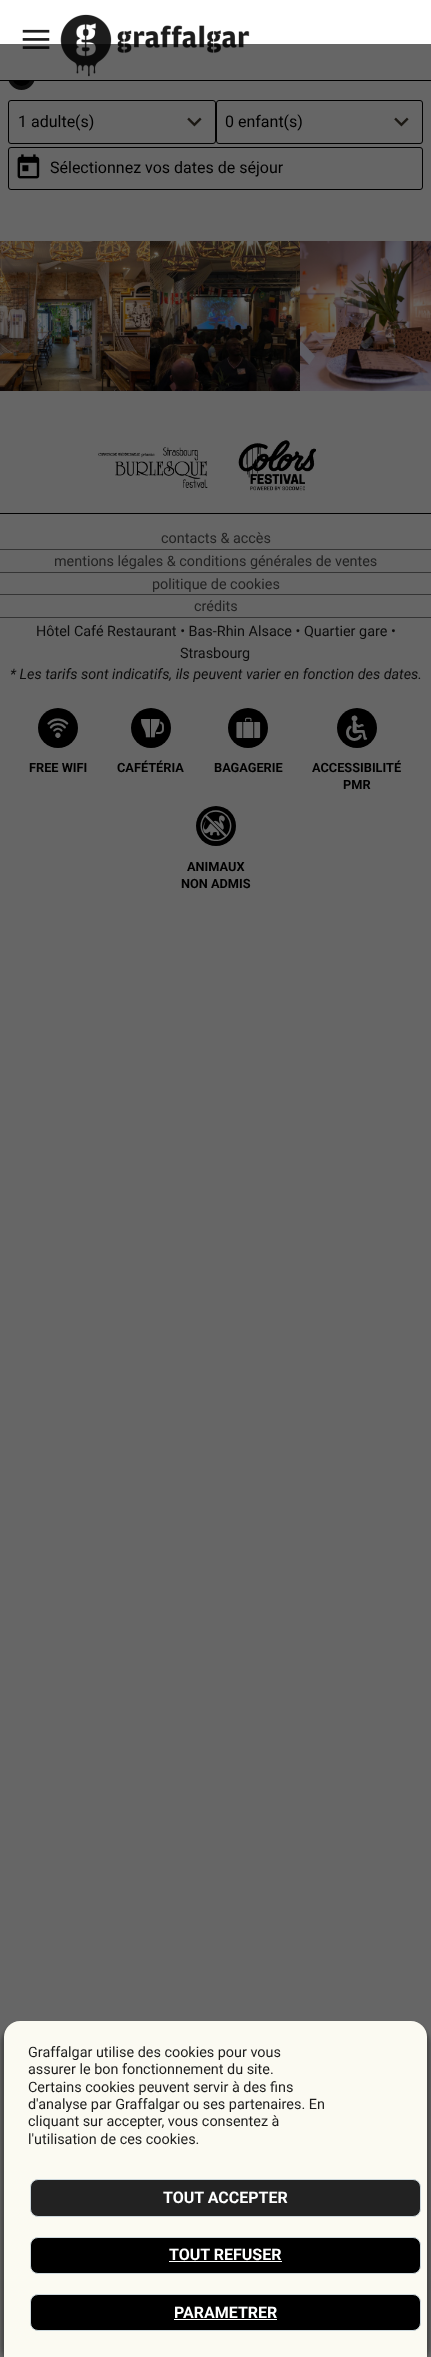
<!DOCTYPE html>
<meta charset="utf-8">
<style>body { margin: 0 } canvas { display: block }</style>
<canvas id="canvas" width="431" height="2357"></canvas>
<script type="module">
  const canvas = document.getElementById("canvas");
  const g = canvas.getContext("2d");
  g.miterLimit = 4;
  g.fontKerning = "normal";
  function drawText(s, x, y, [font, color]) {
    g.font = font;
    g.fillStyle = color;
    g.fillText(s, x, y);
  }
  function fillBox(x, y, w, h, color) {
    g.fillStyle = color;
    g.fillRect(x, y, w, h);
  }
  async function drawPicture(src, x, y, w, h) {
    const img = new Image();
    img.src = src;
    await img.decode();
    g.drawImage(img, x, y, w, h);
  }

  const s1 = ["16px Roboto", "#000000"];
  const s2 = ["14.4px Roboto", "#565656"];
  const s3 = ["14.4px Roboto", "#1E1E1E"];
  const s4 = ["italic 14.4px Roboto", "#1E1E1E"];
  const s5 = ["28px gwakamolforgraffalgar", "#FEFFFF"];
  const s6 = ["bold 12.75px Roboto", "#000000"];
  const s7 = ["bold 16px Roboto", "#FEFFFF"];

  fillBox(0, 0, 431, 2357, "#FFFFFF");
  g.fillStyle = "#000000";
  g.beginPath();
  g.arc(21.5, 76.5, 11.5, 0, Math.PI * 2);
  g.fill();
  g.strokeStyle = "#1F1F1F";
  g.lineWidth = 4;
  g.stroke();
  fillBox(8, 63, 27, 17, "#FEFEFE");
  fillBox(0, 80, 431, 1, "#000000");
  await drawPicture("pic1.png", 22, 29, 28, 20);
  await drawPicture("pic2.png", 60, 14, 190, 63);
  g.beginPath();
  g.roundRect(8.5, 100.5, 207, 43, 2.5);
  g.strokeStyle = "#000000";
  g.lineWidth = 1;
  g.stroke();
  drawText("1 adulte(s)", 18, 127, s1);
  await drawPicture("pic3.png", 187, 117, 15, 10);
  g.beginPath();
  g.roundRect(216.5, 100.5, 206, 43, 2.5);
  g.stroke();
  drawText("0 enfant(s)", 225, 127, s1);
  await drawPicture("pic3.png", 394, 117, 15, 10);
  g.beginPath();
  g.roundRect(8.5, 147.5, 414, 42, 2.5);
  g.stroke();
  await drawPicture("pic4.png", 17, 154, 23, 25);
  drawText("Sélectionnez vos dates de séjour", 50, 173, s1);
  await drawPicture("pic5.png", 0, 241, 150, 150);
  await drawPicture("pic6.png", 150, 241, 150, 150);
  await drawPicture("pic7.png", 300, 241, 131, 150);
  fillBox(0, 513, 431, 1, "#000000");
  await drawPicture("pic8.png", 98, 447, 110, 41);
  await drawPicture("pic9.png", 238, 440, 78, 51);
  fillBox(0, 549, 431, 1, "#838383");
  drawText("contacts & accès", 161, 543, s2);
  fillBox(0, 572, 431, 1, "#838383");
  drawText("mentions légales & conditions générales de ventes", 54, 566, s2);
  fillBox(0, 594, 431, 1, "#838383");
  drawText("politique de cookies", 152, 589, s2);
  fillBox(0, 617, 431, 1, "#838383");
  drawText("crédits", 194, 611, s2);
  drawText("Hôtel Café Restaurant • Bas-Rhin Alsace • Quartier gare •", 36, 636, s3);
  drawText("Strasbourg", 180, 658, s3);
  drawText("* Les tarifs sont indicatifs, ils peuvent varier en fonction des dates.", 10, 679, s4);
  g.fillStyle = "#000000";
  g.beginPath();
  g.arc(58, 728, 20, 0, Math.PI * 2);
  g.fill();
  drawText("4", 44, 735, s5);
  drawText("FREE WIFI", 29, 772, s6);
  g.beginPath();
  g.arc(151, 728, 20, 0, Math.PI * 2);
  g.fill();
  drawText("1", 137, 735, s5);
  drawText("CAFÉTÉRIA", 117, 772, s6);
  g.beginPath();
  g.arc(248, 728, 20, 0, Math.PI * 2);
  g.fill();
  drawText("3", 234, 735, s5);
  drawText("BAGAGERIE", 214, 772, s6);
  g.beginPath();
  g.arc(357, 728, 20, 0, Math.PI * 2);
  g.fill();
  drawText("2", 343, 735, s5);
  drawText("ACCESSIBILITÉ", 312, 772, s6);
  drawText("PMR", 343, 789, s6);
  g.beginPath();
  g.arc(216, 826, 20, 0, Math.PI * 2);
  g.fill();
  drawText("5", 202, 833, s5);
  drawText("ANIMAUX", 187, 871, s6);
  drawText("NON ADMIS", 181, 888, s6);
  fillBox(0, 44, 431, 2313, "rgba(0, 0, 0, 0.6)");
  g.fillStyle = "rgba(0, 0, 0, 0.3)";
  g.filter = "blur(1.5px)";
  g.beginPath();
  g.roundRect(1, 2024, 429, 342, 19);
  g.fill();
  g.filter = "none";
  g.fillStyle = "#FBFAF2";
  g.beginPath();
  g.roundRect(4, 2021, 423, 336, [16, 16, 0, 0]);
  g.fill();
  drawText("Graffalgar utilise des cookies pour vous", 28, 2057, s3);
  drawText("assurer le bon fonctionnement du site.", 28, 2074, s3);
  drawText("Certains cookies peuvent servir à des fins", 28, 2092, s3);
  drawText("d'analyse par Graffalgar ou ses partenaires. En", 28, 2109, s3);
  drawText("cliquant sur accepter, vous consentez à", 28, 2126, s3);
  drawText("l'utilisation de ces cookies.", 28, 2144, s3);
  g.fillStyle = "#222222";
  g.beginPath();
  g.roundRect(30.5, 2179.5, 390, 37, 7.5);
  g.fill();
  g.strokeStyle = "#CCD7DC";
  g.stroke();
  drawText("TOUT ACCEPTER", 163, 2203, s7);
  g.fillStyle = "#000000";
  g.beginPath();
  g.roundRect(30.5, 2237.5, 390, 36, 7.5);
  g.fill();
  g.stroke();
  drawText("TOUT REFUSER", 169, 2260, s7);
  fillBox(169, 2261, 113, 1, "#FEFFFF");
  g.fillStyle = "#000000";
  g.beginPath();
  g.roundRect(30.5, 2294.5, 390, 36, 7.5);
  g.fill();
  g.stroke();
  drawText("PARAMETRER", 174, 2318, s7);
  fillBox(174, 2319, 103, 1, "#FEFFFF");
</script>
